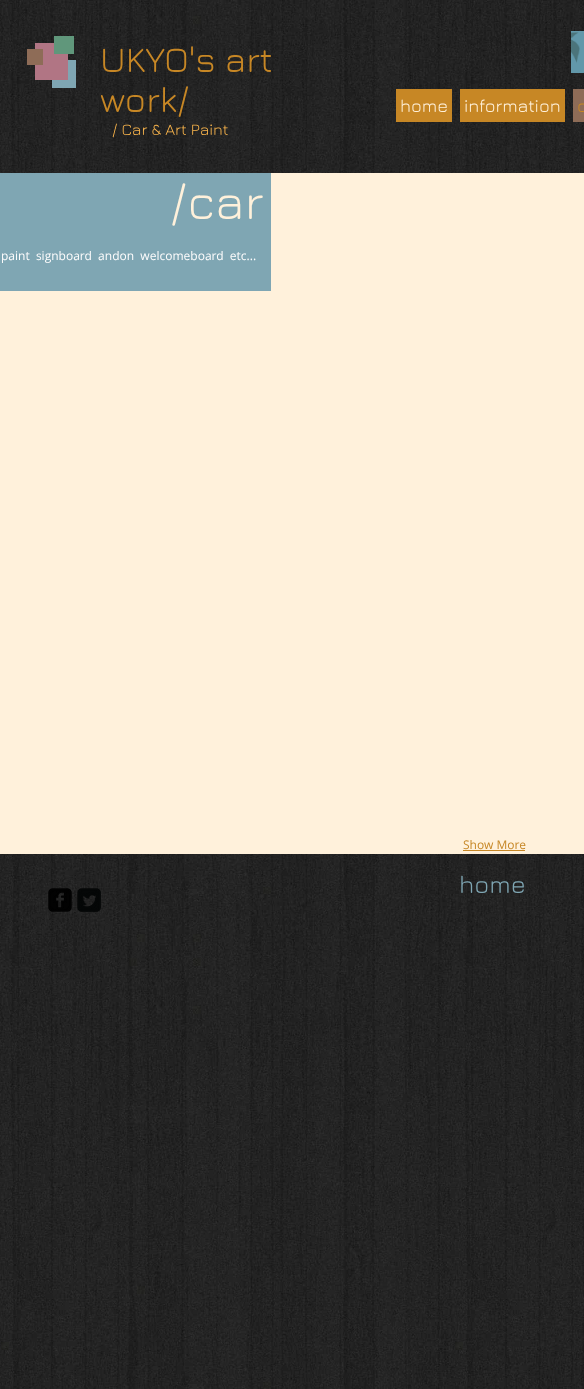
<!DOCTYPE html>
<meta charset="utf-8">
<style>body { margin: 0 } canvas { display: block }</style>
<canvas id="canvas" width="584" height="1389"></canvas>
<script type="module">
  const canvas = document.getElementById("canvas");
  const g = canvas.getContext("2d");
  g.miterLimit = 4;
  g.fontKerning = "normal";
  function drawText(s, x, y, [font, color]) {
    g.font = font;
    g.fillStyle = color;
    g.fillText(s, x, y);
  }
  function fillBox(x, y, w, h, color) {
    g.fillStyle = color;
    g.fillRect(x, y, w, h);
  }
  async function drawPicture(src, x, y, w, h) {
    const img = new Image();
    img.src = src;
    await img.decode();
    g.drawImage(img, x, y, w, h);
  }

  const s1 = ["36px Jura", "#C78725"];
  const s2 = ["18px Jura", "#FFF1DB"];
  const s3 = ["18px Jura", "#C78725"];
  const s4 = ["16px Jura", "#FCB64C"];
  const s5 = ["50px Jura", "#FFF1DB"];
  const s6 = ["12px Open Sans", "#FEFDFD"];
  const s7 = ["12px Open Sans", "#C78725"];
  const s8 = ["25px Jura", "#7FA6B3"];

  fillBox(0, 0, 584, 1389, "#FFFFFF");
  await drawPicture("pic1.png", 0, 0, 584, 1389);
  fillBox(52, 60, 24, 28, "#7FA6B3");
  fillBox(35, 43, 33, 37, "#B17584");
  fillBox(54, 36, 20, 18, "#60977B");
  fillBox(27, 49, 16, 16, "#8E6C57");
  drawText("UKYO's art", 100, 72, s1);
  drawText("work/", 100, 112, s1);
  fillBox(571, 31, 13, 42, "#6298AA");
  await drawPicture("pic2.png", 571, 32, 13, 41);
  fillBox(396, 89, 56, 33, "#C78725");
  drawText("home", 400, 112, s2);
  fillBox(460, 89, 105, 33, "#C78725");
  drawText("information", 464, 112, s2);
  fillBox(573, 89, 11, 33, "#8E6C57");
  drawText("c", 577, 112, s3);
  drawText("/ Car & Art Paint", 112, 135, s4);
  fillBox(0, 173, 584, 681, "#FFF1DB");
  fillBox(0, 173, 271, 118, "#7FA6B3");
  drawText("/car", 170, 219, s5);
  drawText("paint  signboard  andon  welcomeboard  etc...", 1, 260, s6);
  drawText("Show More", 463, 849, s7);
  fillBox(463, 850, 62, 1, "#C78725");
  drawText("home", 459, 893, s8);
  await drawPicture("pic3.png", 48, 888, 24, 24);
  await drawPicture("pic4.png", 77, 888, 24, 24);
</script>
